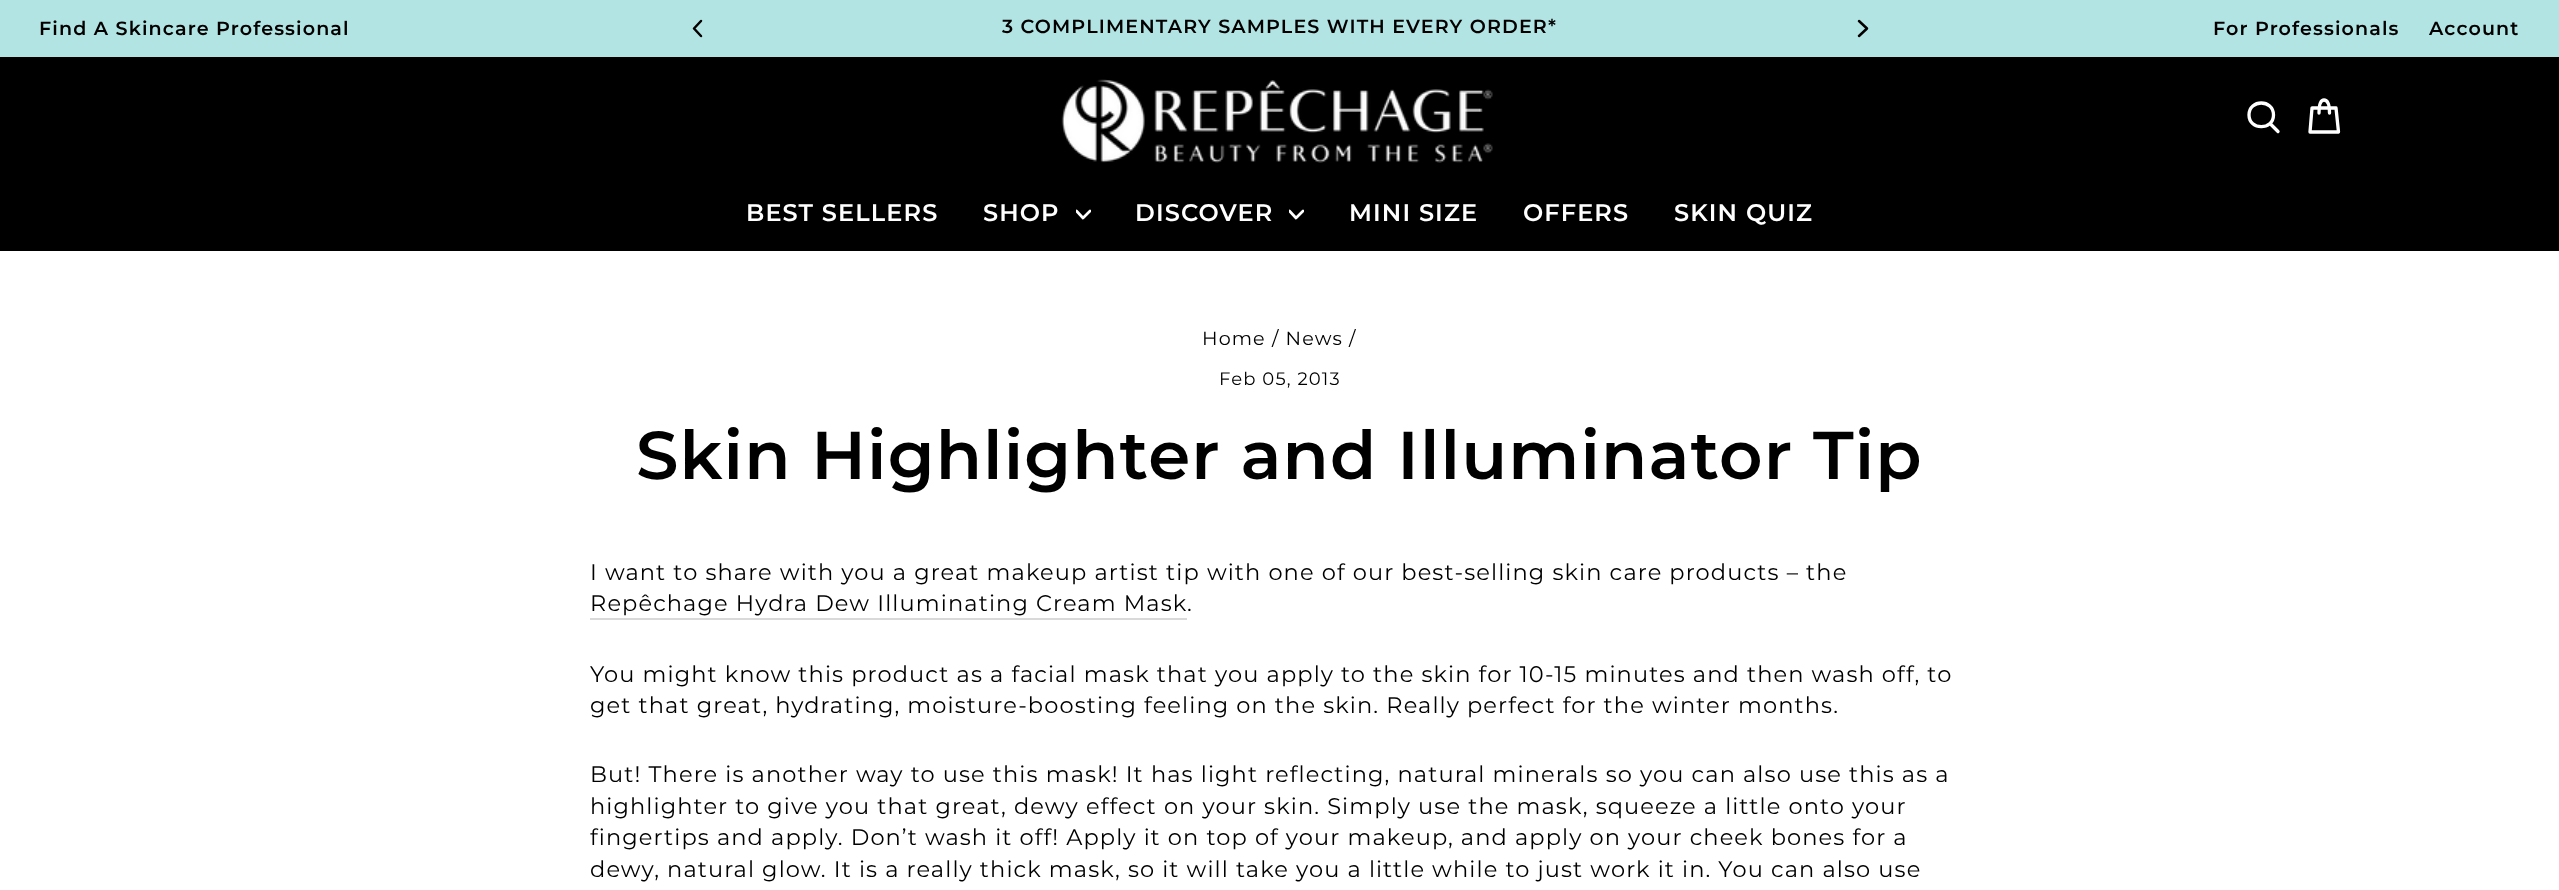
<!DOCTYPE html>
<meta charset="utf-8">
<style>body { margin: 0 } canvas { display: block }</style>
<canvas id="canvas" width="2559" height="890"></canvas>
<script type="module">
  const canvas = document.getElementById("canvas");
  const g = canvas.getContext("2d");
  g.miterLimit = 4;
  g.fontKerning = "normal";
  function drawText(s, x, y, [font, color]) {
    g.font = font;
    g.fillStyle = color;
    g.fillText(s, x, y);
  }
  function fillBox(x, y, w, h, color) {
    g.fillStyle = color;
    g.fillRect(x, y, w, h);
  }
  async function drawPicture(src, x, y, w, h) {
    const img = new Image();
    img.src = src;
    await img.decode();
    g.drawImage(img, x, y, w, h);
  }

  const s1 = ["600 19.1px Montserrat", "#000000"];
  const s2 = ["600 24px Montserrat", "#FFFFFF"];
  const s3 = ["19.1px Montserrat", "#000000"];
  const s4 = ["18px Montserrat", "#000000"];
  const s5 = ["600 67.5px Montserrat", "#000000"];
  const s6 = ["22.5px Montserrat", "#000000"];

  fillBox(0, 0, 2559, 890, "#FFFFFF");
  fillBox(0, 0, 2559, 57, "#B1E4E3");
  g.letterSpacing = "1.12px";
  drawText("Find A Skincare Professional", 39, 35, s1);
  g.beginPath();
  g.moveTo(701, 21);
  g.lineTo(694, 28.5);
  g.lineTo(701, 36);
  g.strokeStyle = "#000000";
  g.lineWidth = 2.5;
  g.lineCap = "round";
  g.lineJoin = "round";
  g.stroke();
  drawText("3 COMPLIMENTARY SAMPLES WITH EVERY ORDER*", 1002, 33, s1);
  g.beginPath();
  g.moveTo(1859, 21);
  g.lineTo(1867, 28.5);
  g.lineTo(1859, 36);
  g.stroke();
  drawText("For Professionals", 2213, 35, s1);
  drawText("Account", 2429, 35, s1);
  fillBox(0, 57, 2559, 194, "#000000");
  await drawPicture("pic1.png", 1061, 79, 432, 84);
  g.beginPath();
  g.moveTo(2273.5, 115);
  g.bezierCurveTo(2273.5, 130.5, 2249, 130.5, 2249, 115);
  g.bezierCurveTo(2249, 99, 2273.5, 99, 2273.5, 115);
  g.closePath();
  g.moveTo(2278, 131.5);
  g.lineTo(2270, 123.5);
  g.strokeStyle = "#FFFFFF";
  g.lineWidth = 3.3;
  g.stroke();
  g.beginPath();
  g.moveTo(2319, 113);
  g.bezierCurveTo(2319, 102.5, 2321, 100, 2324, 100);
  g.bezierCurveTo(2327, 100, 2329.5, 102.5, 2329.5, 113);
  g.moveTo(2312, 108);
  g.lineTo(2336, 108);
  g.lineTo(2338.5, 132);
  g.lineTo(2310, 132);
  g.closePath();
  g.stroke();
  drawText("BEST SELLERS", 746, 221, s2);
  drawText("SHOP", 983, 221, s2);
  g.save();
  g.beginPath();
  g.rect(1076, 207, 15, 15);
  g.clip();
  g.beginPath();
  g.moveTo(1076.5, 211);
  g.lineTo(1083, 218);
  g.lineTo(1090, 211);
  g.lineWidth = 2.7;
  g.stroke();
  g.restore();
  drawText("DISCOVER", 1135, 221, s2);
  g.save();
  g.beginPath();
  g.rect(1289, 207, 15, 15);
  g.clip();
  g.beginPath();
  g.moveTo(1289.5, 211);
  g.lineTo(1296, 218);
  g.lineTo(1303, 211);
  g.lineWidth = 2.7;
  g.stroke();
  g.restore();
  drawText("MINI SIZE", 1349, 221, s2);
  drawText("OFFERS", 1523, 221, s2);
  drawText("SKIN QUIZ", 1674, 221, s2);
  drawText("Home / News /", 1202, 345, s3);
  drawText("Feb 05, 2013", 1219, 385, s4);
  drawText("Skin Highlighter and Illuminator Tip", 636, 479, s5);
  drawText("I want to share with you a great makeup artist tip with one of our best-selling skin care products – the", 590, 580, s6);
  fillBox(590, 618, 597, 2, "#D9D9D9");
  drawText("Repêchage Hydra Dew Illuminating Cream Mask", 590, 611, s6);
  drawText(".", 1187, 611, s6);
  drawText("You might know this product as a facial mask that you apply to the skin for 10-15 minutes and then wash off, to", 590, 682, s6);
  drawText("get that great, hydrating, moisture-boosting feeling on the skin. Really perfect for the winter months.", 590, 713, s6);
  drawText("But! There is another way to use this mask! It has light reflecting, natural minerals so you can also use this as a", 590, 782, s6);
  drawText("highlighter to give you that great, dewy effect on your skin. Simply use the mask, squeeze a little onto your", 590, 814, s6);
  drawText("fingertips and apply. Don’t wash it off! Apply it on top of your makeup, and apply on your cheek bones for a", 590, 845, s6);
  drawText("dewy, natural glow. It is a really thick mask, so it will take you a little while to just work it in. You can also use", 590, 877, s6);
</script>
